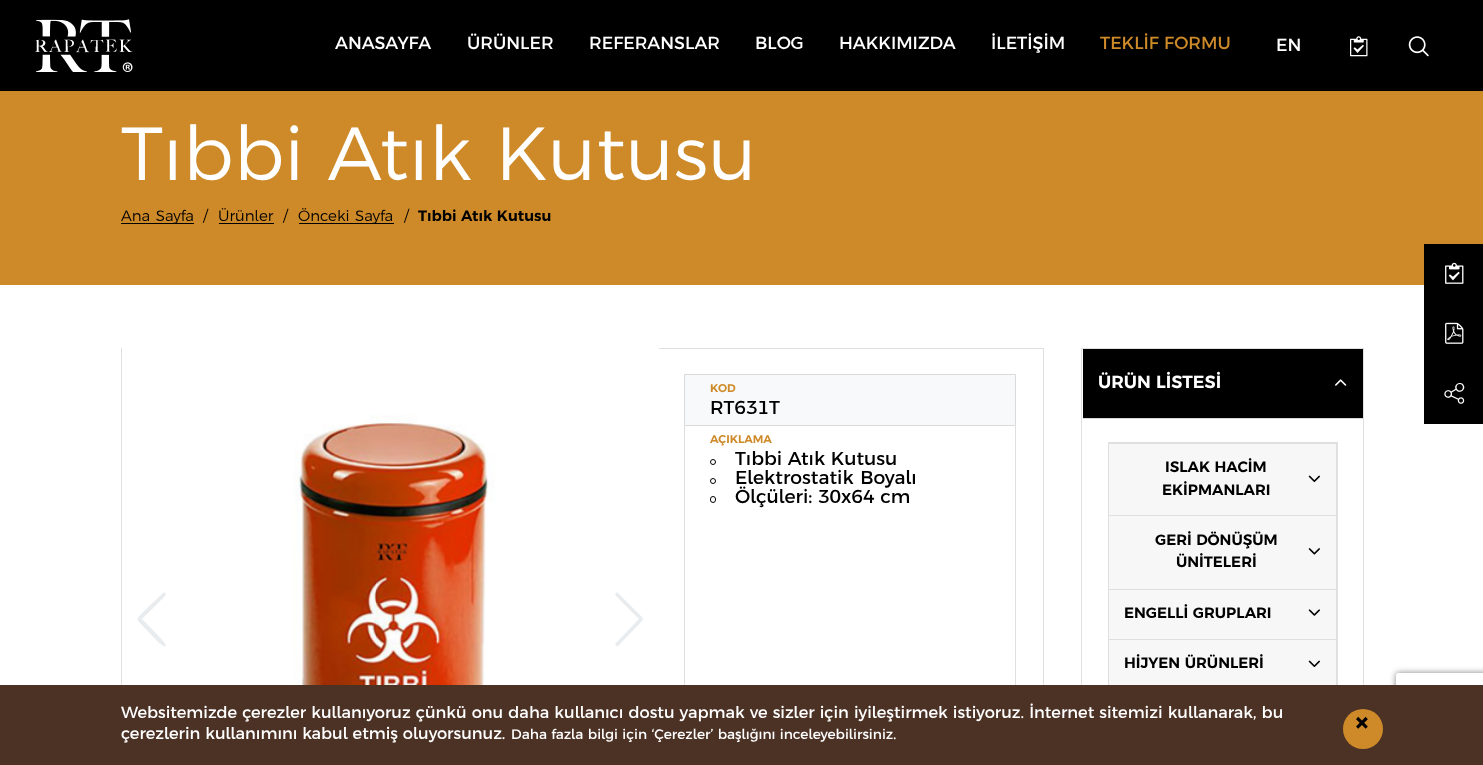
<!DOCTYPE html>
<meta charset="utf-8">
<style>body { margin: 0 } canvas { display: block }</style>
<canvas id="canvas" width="1483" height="765"></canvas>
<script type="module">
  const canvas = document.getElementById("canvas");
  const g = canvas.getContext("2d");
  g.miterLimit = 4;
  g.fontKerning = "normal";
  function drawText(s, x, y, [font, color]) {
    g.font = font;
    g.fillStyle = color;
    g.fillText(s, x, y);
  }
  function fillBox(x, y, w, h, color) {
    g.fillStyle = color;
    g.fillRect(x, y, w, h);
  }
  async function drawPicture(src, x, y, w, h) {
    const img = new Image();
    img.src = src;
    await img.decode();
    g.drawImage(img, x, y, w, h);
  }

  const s1 = ["17.5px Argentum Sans", "#FFFFFF"];
  const s2 = ["17.5px Argentum Sans", "#CE8A29"];
  const s3 = ["300 75px Argentum Sans", "#FFFFFF"];
  const s4 = ["300 15px Argentum Sans", "#000000"];
  const s5 = ["600 15px Argentum Sans", "#000000"];
  const s6 = ["600 11.25px Argentum Sans", "#CE8A29"];
  const s7 = ["18.75px Argentum Sans", "#000000"];
  const s8 = ["600 17.5px Argentum Sans", "#FFFFFF"];
  const s9 = ["16.25px Argentum Sans", "#FFFFFF"];
  const s10 = ["13.75px Argentum Sans", "#FFFFFF"];
  const s11 = ["bold 30px Argentum Sans", "#000000"];

  fillBox(0, 0, 1483, 765, "#FFFFFF");
  fillBox(0, 0, 1483, 91, "#000000");
  await drawPicture("pic1.png", 35, 19, 98, 53);
  drawText("ANASAYFA", 335, 49, s1);
  drawText("ÜRÜNLER", 467, 49, s1);
  drawText("REFERANSLAR", 589, 49, s1);
  drawText("BLOG", 755, 49, s1);
  drawText("HAKKIMIZDA", 839, 49, s1);
  drawText("İLETİŞİM", 991, 49, s1);
  drawText("TEKLİF FORMU", 1100, 49, s2);
  drawText("EN", 1276, 51, s1);
  await drawPicture("pic2.png", 1350, 36, 18, 21);
  await drawPicture("pic3.png", 1408, 36, 21, 21);
  fillBox(0, 91, 1483, 194, "#CE8A29");
  g.wordSpacing = "1px";
  drawText("Tıbbi Atık Kutusu", 121, 180, s3);
  fillBox(121, 223, 73, 1, "#000000");
  drawText("Ana Sayfa", 121, 221, s4);
  g.wordSpacing = "0px";
  drawText("/", 203, 221, s4);
  drawText("Ürünler", 218, 221, s4);
  fillBox(219, 223, 55, 1, "#000000");
  drawText("/", 283, 221, s4);
  fillBox(299, 223, 95, 1, "#000000");
  g.wordSpacing = "1px";
  drawText("Önceki Sayfa", 298, 221, s4);
  g.wordSpacing = "0px";
  drawText("/", 404, 221, s4);
  drawText("Tıbbi Atık Kutusu", 418, 221, s5);
  g.strokeStyle = "#DFDFDF";
  g.strokeRect(121.5, 348.5, 922, 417);
  await drawPicture("pic4.png", 122, 348, 537, 337);
  await drawPicture("pic5.png", 122, 348, 537, 1);
  g.fillStyle = "#E9ECEF";
  g.beginPath();
  g.moveTo(163, 593);
  g.bezierCurveTo(164, 592, 166, 593, 166, 594);
  g.bezierCurveTo(166, 596, 144, 617, 142, 619);
  g.bezierCurveTo(145, 622, 166, 643, 166, 645);
  g.bezierCurveTo(165, 649, 161, 644, 158, 642);
  g.lineTo(142, 625);
  g.bezierCurveTo(136, 619, 136, 620, 142, 613);
  g.closePath();
  g.fill();
  g.beginPath();
  g.moveTo(616, 646);
  g.bezierCurveTo(615, 645, 615, 644, 616, 643);
  g.lineTo(639, 619);
  g.lineTo(616, 596);
  g.bezierCurveTo(615, 595, 615, 594, 616, 593);
  g.bezierCurveTo(616, 592, 617, 592, 618, 593);
  g.lineTo(642, 617);
  g.lineTo(643, 619);
  g.lineTo(642, 621);
  g.lineTo(618, 646);
  g.bezierCurveTo(617, 646, 616, 646, 616, 646);
  g.closePath();
  g.fill();
  g.fillStyle = "#F8F9FA";
  g.beginPath();
  g.rect(684.5, 374.5, 331, 51);
  g.fill();
  g.strokeStyle = "#D9DADB";
  g.stroke();
  drawText("KOD", 710, 392, s6);
  drawText("RT631T", 710, 414, s7);
  g.fillStyle = "#DFDFDF";
  g.beginPath();
  g.moveTo(1016, 426);
  g.lineTo(1016, 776);
  g.lineTo(1015, 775);
  g.lineTo(1015, 426);
  g.closePath();
  g.fill();
  g.beginPath();
  g.moveTo(684, 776);
  g.lineTo(684, 426);
  g.lineTo(685, 426);
  g.lineTo(685, 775);
  g.closePath();
  g.fill();
  drawText("AÇIKLAMA", 710, 443, s6);
  g.beginPath();
  g.arc(713, 462, 2.5, 0, Math.PI * 2);
  g.strokeStyle = "#000000";
  g.stroke();
  drawText("Tıbbi Atık Kutusu", 735, 465, s7);
  g.beginPath();
  g.arc(713, 481, 2.5, 0, Math.PI * 2);
  g.stroke();
  g.wordSpacing = "1px";
  drawText("Elektrostatik Boyalı", 735, 484, s7);
  g.beginPath();
  g.roundRect(710.5, 496.5, 5, 6, 2.5);
  g.stroke();
  g.wordSpacing = "0px";
  drawText("Ölçüleri: 30x64 cm", 735, 503, s7);
  g.strokeStyle = "#DFDFDF";
  g.strokeRect(1081.5, 348.5, 282, 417);
  fillBox(1083, 418, 280, 1, "#D8D8D8");
  fillBox(1083, 349, 280, 69, "#000000");
  drawText("ÜRÜN LİSTESİ", 1098, 388, s8);
  await drawPicture("pic6.png", 1335, 379, 12, 7);
  g.fillStyle = "#DFDFDF";
  g.beginPath();
  g.moveTo(1108, 442);
  g.lineTo(1338, 442);
  g.lineTo(1336, 444);
  g.lineTo(1109, 444);
  g.closePath();
  g.fill();
  g.fillStyle = "rgba(0, 0, 0, 0.12)";
  g.beginPath();
  g.moveTo(1338, 442);
  g.lineTo(1338, 515);
  g.lineTo(1336, 515);
  g.lineTo(1336, 444);
  g.closePath();
  g.fill();
  g.beginPath();
  g.moveTo(1108, 515);
  g.lineTo(1108, 442);
  g.lineTo(1109, 444);
  g.lineTo(1109, 515);
  g.closePath();
  g.fill();
  fillBox(1109, 444, 227, 71, "#F7F7F7");
  drawText("ISLAK HACİM", 1165, 472, s5);
  await drawPicture("pic7.png", 1308, 475, 12, 7);
  drawText("EKİPMANLARI", 1162, 495, s5);
  g.fillStyle = "#DFDFDF";
  g.beginPath();
  g.moveTo(1108, 515);
  g.lineTo(1338, 515);
  g.lineTo(1336, 516);
  g.lineTo(1109, 516);
  g.closePath();
  g.fill();
  g.fillStyle = "rgba(0, 0, 0, 0.12)";
  g.beginPath();
  g.moveTo(1338, 515);
  g.lineTo(1338, 589);
  g.lineTo(1336, 589);
  g.lineTo(1336, 516);
  g.closePath();
  g.fill();
  g.beginPath();
  g.moveTo(1108, 589);
  g.lineTo(1108, 515);
  g.lineTo(1109, 516);
  g.lineTo(1109, 589);
  g.closePath();
  g.fill();
  fillBox(1109, 516, 227, 73, "#F7F7F7");
  drawText("GERİ DÖNÜŞÜM", 1155, 545, s5);
  await drawPicture("pic8.png", 1308, 548, 12, 7);
  drawText("ÜNİTELERİ", 1176, 567, s5);
  g.fillStyle = "#DFDFDF";
  g.beginPath();
  g.moveTo(1108, 589);
  g.lineTo(1338, 589);
  g.lineTo(1336, 590);
  g.lineTo(1109, 590);
  g.closePath();
  g.fill();
  g.fillStyle = "rgba(0, 0, 0, 0.12)";
  g.beginPath();
  g.moveTo(1338, 589);
  g.lineTo(1338, 639);
  g.lineTo(1336, 639);
  g.lineTo(1336, 590);
  g.closePath();
  g.fill();
  g.beginPath();
  g.moveTo(1108, 639);
  g.lineTo(1108, 589);
  g.lineTo(1109, 590);
  g.lineTo(1109, 639);
  g.closePath();
  g.fill();
  fillBox(1109, 590, 227, 49, "#F7F7F7");
  drawText("ENGELLİ GRUPLARI", 1124, 618, s5);
  await drawPicture("pic9.png", 1308, 609, 12, 7);
  g.fillStyle = "#DFDFDF";
  g.beginPath();
  g.moveTo(1108, 639);
  g.lineTo(1338, 639);
  g.lineTo(1336, 640);
  g.lineTo(1109, 640);
  g.closePath();
  g.fill();
  g.fillStyle = "rgba(0, 0, 0, 0.12)";
  g.beginPath();
  g.moveTo(1338, 639);
  g.lineTo(1338, 689);
  g.lineTo(1336, 689);
  g.lineTo(1336, 640);
  g.closePath();
  g.fill();
  g.beginPath();
  g.moveTo(1108, 689);
  g.lineTo(1108, 639);
  g.lineTo(1109, 640);
  g.lineTo(1109, 689);
  g.closePath();
  g.fill();
  fillBox(1109, 640, 227, 45, "#F7F7F7");
  drawText("HİJYEN ÜRÜNLERİ", 1124, 668, s5);
  await drawPicture("pic7.png", 1308, 660, 12, 7);
  fillBox(1424, 244, 59, 180, "#000000");
  await drawPicture("pic10.png", 1445, 262, 19, 22);
  await drawPicture("pic11.png", 1445, 322, 19, 22);
  await drawPicture("pic12.png", 1444, 383, 21, 21);
  g.save();
  g.beginPath();
  g.moveTo(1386, 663);
  g.lineTo(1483, 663);
  g.lineTo(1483, 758);
  g.lineTo(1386, 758);
  g.closePath();
  g.moveTo(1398.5, 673);
  g.lineTo(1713.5, 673);
  g.bezierCurveTo(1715, 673, 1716, 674, 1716, 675.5);
  g.lineTo(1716, 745.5);
  g.bezierCurveTo(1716, 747, 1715, 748, 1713.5, 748);
  g.lineTo(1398.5, 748);
  g.bezierCurveTo(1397, 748, 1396, 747, 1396, 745.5);
  g.lineTo(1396, 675.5);
  g.bezierCurveTo(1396, 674, 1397, 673, 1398.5, 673);
  g.closePath();
  g.clip("evenodd");
  g.fillStyle = "#808080";
  g.filter = "blur(3px)";
  g.beginPath();
  g.roundRect(1396, 673, 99, 75, 2.5);
  g.fill();
  g.filter = "none";
  g.restore();
  fillBox(0, 685, 1483, 80, "#4C3125");
  g.wordSpacing = "0.2px";
  drawText("Websitemizde çerezler kullanıyoruz çünkü onu daha kullanıcı dostu yapmak ve sizler için iyileştirmek istiyoruz. İnternet sitemizi kullanarak, bu", 121, 718, s9);
  g.wordSpacing = "0px";
  drawText("çerezlerin kullanımını kabul etmiş oluyorsunuz.", 121, 739, s9);
  g.wordSpacing = "0.25px";
  drawText("Daha fazla bilgi için ‘Çerezler’ başlığını inceleyebilirsiniz.", 511, 739, s10);
  g.fillStyle = "#CE8A29";
  g.beginPath();
  g.arc(1363, 729, 20, 0, Math.PI * 2);
  g.fill();
  g.wordSpacing = "0px";
  drawText("×", 1354, 733, s11);
</script>
